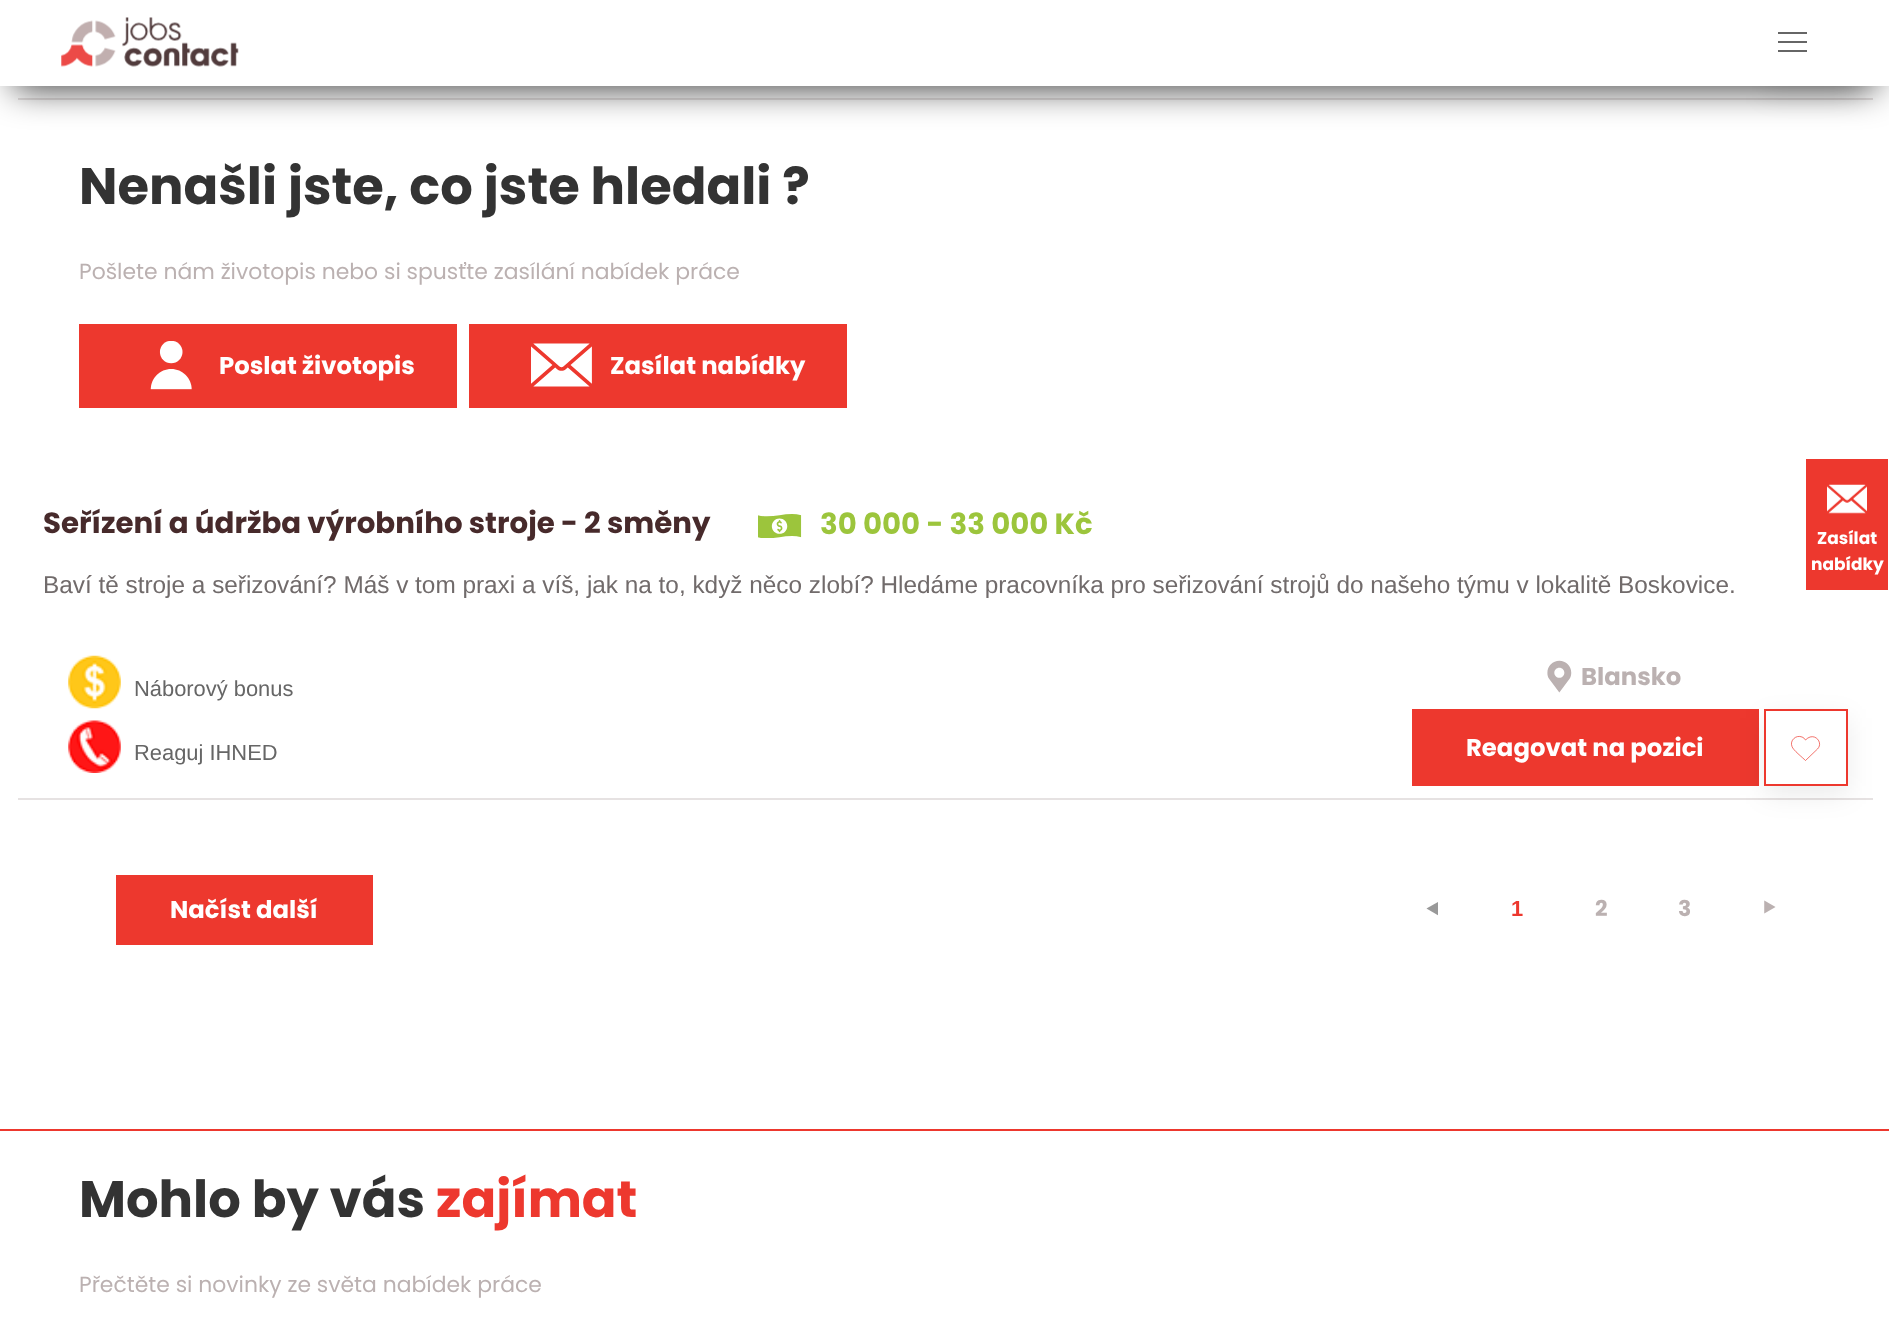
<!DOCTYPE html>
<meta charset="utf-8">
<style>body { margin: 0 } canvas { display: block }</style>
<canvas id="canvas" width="1889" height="1343"></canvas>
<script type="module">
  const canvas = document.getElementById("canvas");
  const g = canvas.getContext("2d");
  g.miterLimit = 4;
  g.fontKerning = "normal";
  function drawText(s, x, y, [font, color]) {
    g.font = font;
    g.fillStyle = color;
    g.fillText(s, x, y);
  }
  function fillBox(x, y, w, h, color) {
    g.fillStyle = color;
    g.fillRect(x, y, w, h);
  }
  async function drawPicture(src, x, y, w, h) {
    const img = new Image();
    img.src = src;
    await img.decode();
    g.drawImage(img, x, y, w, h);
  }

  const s1 = ["bold 51.2px Poppins", "#333333"];
  const s2 = ["21.9px Poppins", "#BBB1B1"];
  const s3 = ["bold 24.35px Poppins", "#FFFFFF"];
  const s4 = ["bold 29.25px Poppins", "#472A2B"];
  const s5 = ["bold 29.25px Poppins", "#9CC53C"];
  const s6 = ["24.35px Liberation Sans", "#716B6B"];
  const s7 = ["21.9px Liberation Sans", "#666666"];
  const s8 = ["bold 24.35px Poppins", "#BBB1B1"];
  const s9 = ["24.35px FreeSans", "#999999"];
  const s10 = ["bold 21.9px Liberation Sans", "#ED382E"];
  const s11 = ["bold 21.9px Poppins", "#BBB1B1"];
  const s12 = ["bold 21.9px FreeSans", "#BBB1B1"];
  const s13 = ["bold 17px Poppins", "#FFFFFF"];
  const s14 = ["bold 51.2px Poppins", "#ED382E"];

  fillBox(0, 0, 1889, 1343, "#FFFFFF");
  fillBox(18, 98, 1855, 2, "#E6E2E2");
  g.fillStyle = "rgba(0, 0, 0, 0.08)";
  g.filter = "blur(13px)";
  g.beginPath();
  g.rect(1764, 19, 84, 76);
  g.fill();
  g.filter = "none";
  drawText("Nenašli jste, co jste hledali ?", 79, 204, s1);
  drawText("Pošlete nám životopis nebo si spusťte zasílání nabídek práce", 79, 279, s2);
  fillBox(79, 324, 378, 84, "#ED382E");
  await drawPicture("pic1.png", 150, 341, 42, 49);
  drawText("Poslat životopis", 219, 374, s3);
  fillBox(469, 324, 378, 84, "#ED382E");
  await drawPicture("pic2.png", 531, 343, 61, 44);
  drawText("Zasílat nabídky", 610, 374, s3);
  fillBox(18, 798, 1855, 2, "#E6E2E2");
  drawText("Seřízení a údržba výrobního stroje - 2 směny", 43, 533, s4);
  await drawPicture("pic3.png", 758, 514, 44, 24);
  drawText("30 000 - 33 000 Kč", 820, 534, s5);
  drawText("Baví tě stroje a seřizování? Máš v tom praxi a víš, jak na to, když něco zlobí? Hledáme pracovníka pro seřizování strojů do našeho týmu v lokalitě Boskovice.", 43, 593, s6);
  await drawPicture("pic4.png", 68, 655, 53, 54);
  drawText("Náborový bonus", 134, 696, s7);
  await drawPicture("pic5.png", 68, 720, 53, 53);
  drawText("Reaguj IHNED", 134, 760, s7);
  await drawPicture("pic6.png", 1547, 660, 25, 33);
  drawText("Blansko", 1581, 685, s8);
  fillBox(1412, 709, 347, 77, "#ED382E");
  drawText("Reagovat na pozici", 1466, 756, s3);
  g.fillStyle = "rgba(0, 0, 0, 0.08)";
  g.filter = "blur(13px)";
  g.beginPath();
  g.rect(1764, 718, 84, 77);
  g.fill();
  g.filter = "none";
  g.fillStyle = "#FFFFFF";
  g.beginPath();
  g.rect(1765, 710, 82, 75);
  g.fill();
  g.strokeStyle = "#ED382E";
  g.lineWidth = 2;
  g.stroke();
  g.beginPath();
  g.moveTo(1817.5, 749);
  g.lineTo(1805.5, 760.5);
  g.bezierCurveTo(1802.5, 757.5, 1793, 750, 1792, 746.5);
  g.bezierCurveTo(1789.5, 740.5, 1796, 734.5, 1802, 737);
  g.bezierCurveTo(1803.5, 737.5, 1804.5, 738.5, 1805.5, 740);
  g.bezierCurveTo(1814, 731, 1824, 742.5, 1817.5, 749);
  g.closePath();
  g.lineWidth = 0.7;
  g.stroke();
  fillBox(116, 875, 257, 70, "#ED382E");
  drawText("Načíst další", 170, 918, s3);
  drawText("⯇", 1423, 918, s9);
  drawText("1", 1511, 916, s10);
  drawText("2", 1595, 916, s11);
  drawText("3", 1678, 916, s11);
  drawText("⯈", 1760, 916, s12);
  g.fillStyle = "rgba(0, 0, 0, 0.75)";
  g.filter = "blur(17.5px)";
  g.beginPath();
  g.rect(14, 32, 1862, 57);
  g.fill();
  g.filter = "none";
  fillBox(0, 0, 1889, 86, "#FFFFFF");
  await drawPicture("pic7.png", 61, 17, 178, 50);
  fillBox(1778, 32, 29, 2, "#666666");
  fillBox(1778, 41, 29, 2, "#666666");
  fillBox(1778, 50, 29, 2, "#666666");
  fillBox(1806, 459, 82, 131, "#ED382E");
  await drawPicture("pic8.png", 1827, 484, 40, 30);
  drawText("Zasílat", 1817, 544, s13);
  drawText("nabídky", 1811, 570, s13);
  fillBox(0, 1129, 1889, 2, "#ED382E");
  drawText("Mohlo by vás", 79, 1217, s1);
  drawText("zajímat", 436, 1217, s14);
  drawText("Přečtěte si novinky ze světa nabídek práce", 79, 1292, s2);
</script>
